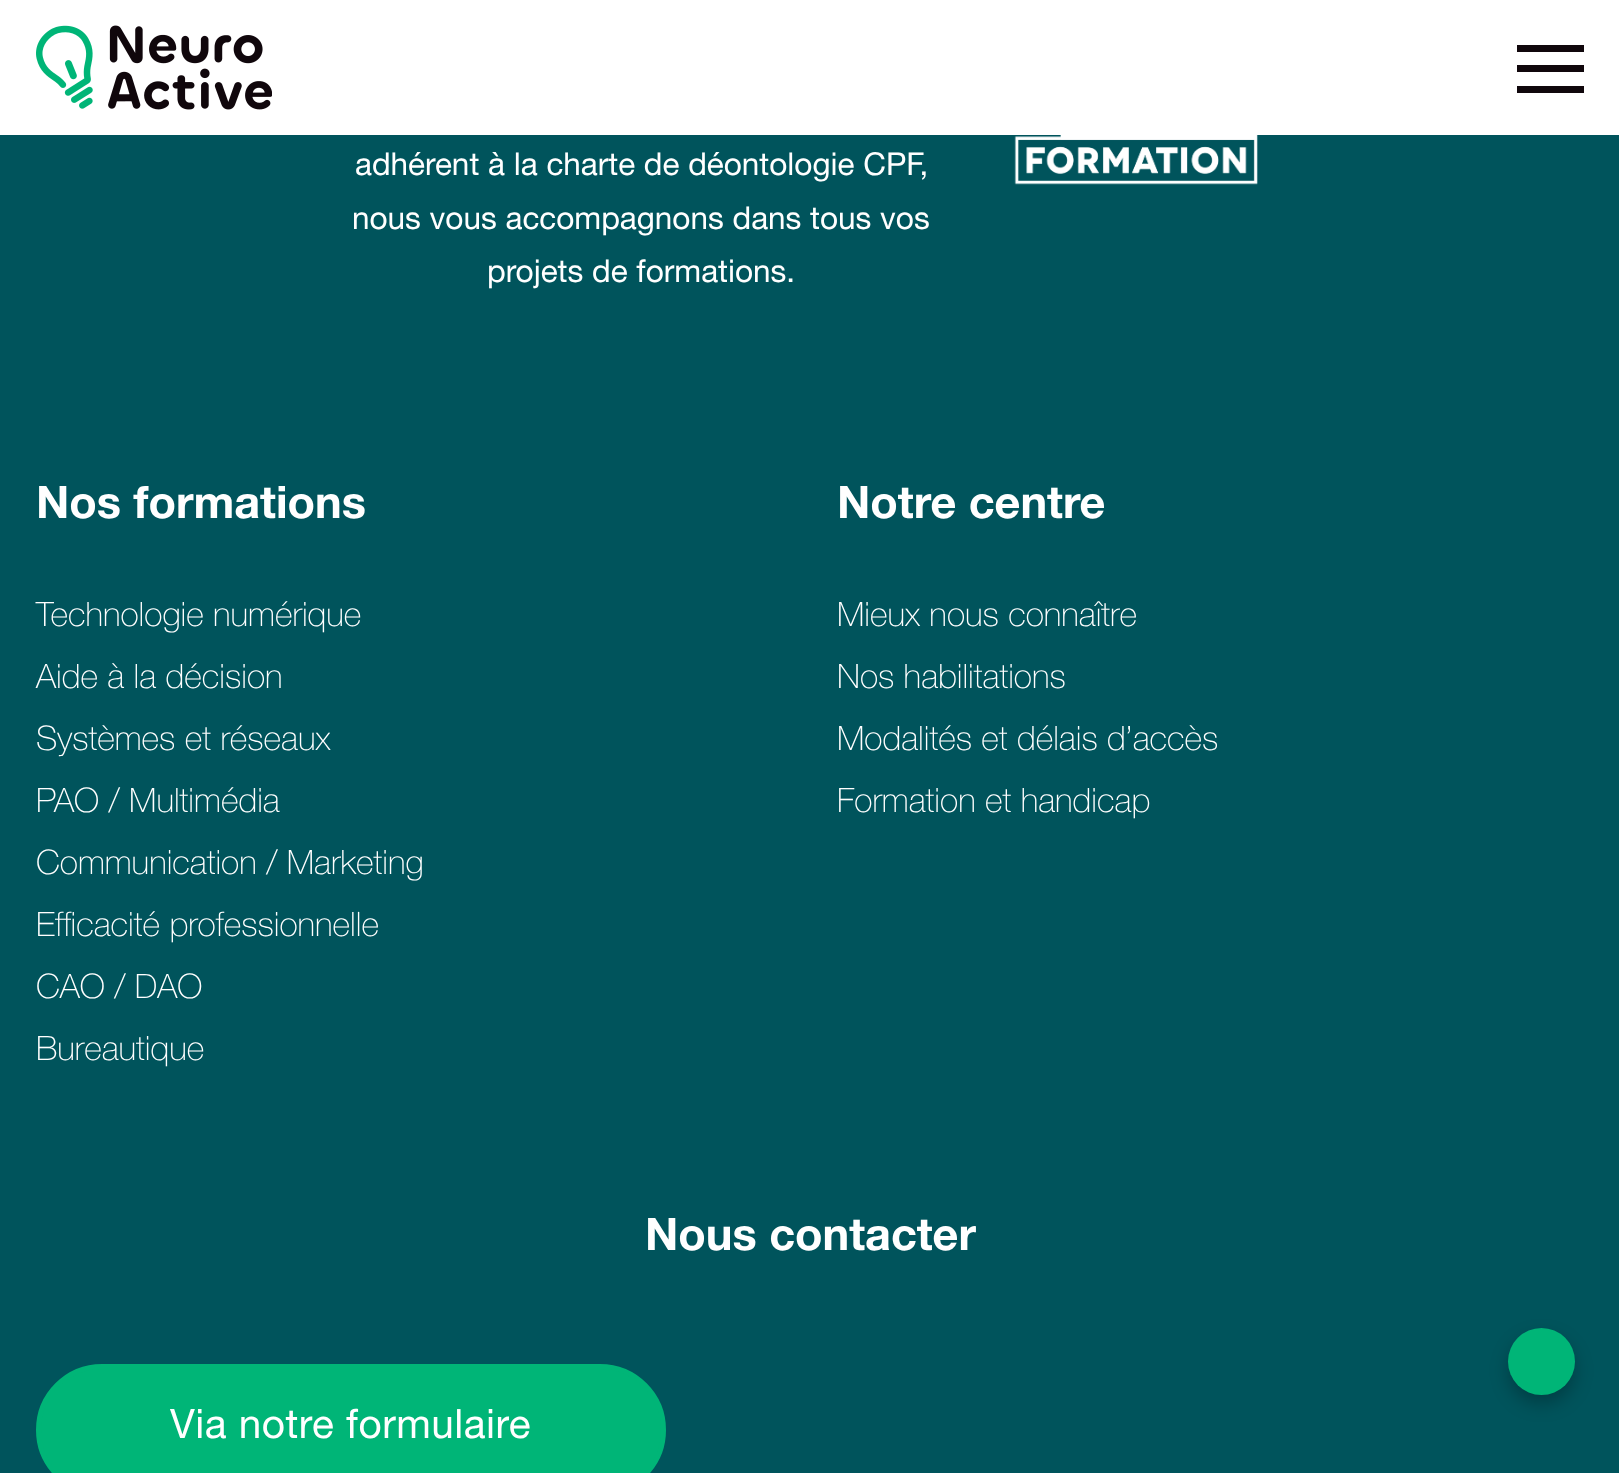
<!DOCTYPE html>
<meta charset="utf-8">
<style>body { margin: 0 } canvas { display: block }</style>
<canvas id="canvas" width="1619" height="1473"></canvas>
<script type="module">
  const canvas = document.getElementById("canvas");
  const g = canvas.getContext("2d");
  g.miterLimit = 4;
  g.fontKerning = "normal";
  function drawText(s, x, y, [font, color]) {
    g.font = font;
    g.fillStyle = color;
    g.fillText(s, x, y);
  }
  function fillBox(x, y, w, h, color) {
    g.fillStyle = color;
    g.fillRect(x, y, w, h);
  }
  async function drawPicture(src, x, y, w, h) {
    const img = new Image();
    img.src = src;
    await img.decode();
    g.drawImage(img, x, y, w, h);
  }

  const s1 = ["31.5px Helvetica Neue", "#FFFFFF"];
  const s2 = ["bold 45px Helvetica Neue", "#FFFFFF"];
  const s3 = ["200 33.75px Helvetica Neue", "#FFFFFF"];
  const s4 = ["40.5px Helvetica Neue", "#FFFFFF"];

  fillBox(0, 0, 1619, 1473, "#00545C");
  fillBox(0, 0, 1619, 135, "#FFFFFF");
  await drawPicture("pic1.png", 36, 25, 236, 85);
  fillBox(1517, 45, 67, 7, "#10070C");
  fillBox(1517, 65, 67, 7, "#10070C");
  fillBox(1517, 86, 67, 7, "#10070C");
  drawText("adhérent à la charte de déontologie CPF,", 355, 175, s1);
  drawText("nous vous accompagnons dans tous vos", 352, 229, s1);
  drawText("projets de formations.", 487, 282, s1);
  await drawPicture("pic2.png", 1014, 135, 244, 50);
  drawText("Nos formations", 36, 518, s2);
  drawText("Technologie numérique", 36, 626, s3);
  drawText("Aide à la décision", 36, 688, s3);
  drawText("Systèmes et réseaux", 36, 750, s3);
  drawText("PAO / Multimédia", 36, 812, s3);
  drawText("Communication / Marketing", 36, 874, s3);
  drawText("Efficacité professionnelle", 36, 936, s3);
  drawText("CAO / DAO", 36, 998, s3);
  drawText("Bureautique", 36, 1060, s3);
  drawText("Notre centre", 837, 518, s2);
  drawText("Mieux nous connaître", 837, 626, s3);
  drawText("Nos habilitations", 837, 688, s3);
  drawText("Modalités et délais d’accès", 837, 750, s3);
  drawText("Formation et handicap", 837, 812, s3);
  drawText("Nous contacter", 645, 1250, s2);
  g.fillStyle = "#00B577";
  g.beginPath();
  g.roundRect(38.5, 1366.5, 625, 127, 63.5);
  g.fill();
  g.strokeStyle = "#00B577";
  g.lineWidth = 5;
  g.stroke();
  g.letterSpacing = "0.5px";
  drawText("Via notre formulaire", 170, 1438, s4);
  g.fillStyle = "rgba(0, 0, 0, 0.25)";
  g.filter = "blur(9px)";
  g.beginPath();
  g.roundRect(1508, 1337, 67, 67, 33.5);
  g.fill();
  g.filter = "none";
  g.fillStyle = "#00B577";
  g.beginPath();
  g.arc(1541.5, 1361.5, 33.5, 0, Math.PI * 2);
  g.fill();
</script>
